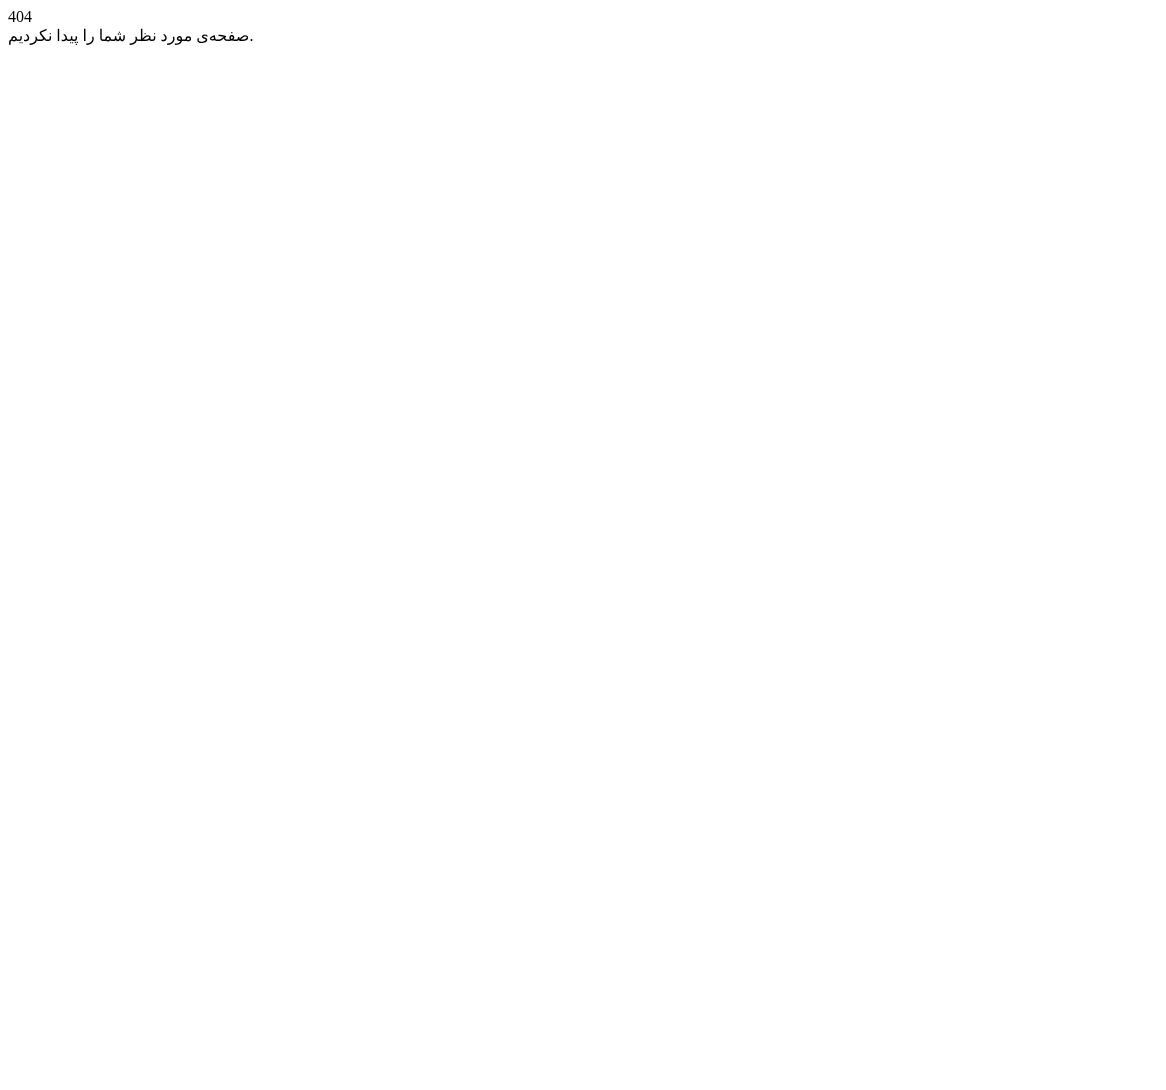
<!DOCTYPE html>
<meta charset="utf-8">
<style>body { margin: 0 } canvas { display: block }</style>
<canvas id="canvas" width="1166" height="1090"></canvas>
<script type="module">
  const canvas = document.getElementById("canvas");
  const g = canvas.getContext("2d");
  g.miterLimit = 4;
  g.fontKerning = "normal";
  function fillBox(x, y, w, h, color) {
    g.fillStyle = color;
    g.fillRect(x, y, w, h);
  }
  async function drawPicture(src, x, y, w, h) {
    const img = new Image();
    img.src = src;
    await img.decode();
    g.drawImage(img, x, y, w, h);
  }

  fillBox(0, 0, 1166, 1090, "#FFFFFF");
  await drawPicture("pic1.png", 8, 11, 245, 34);
</script>
